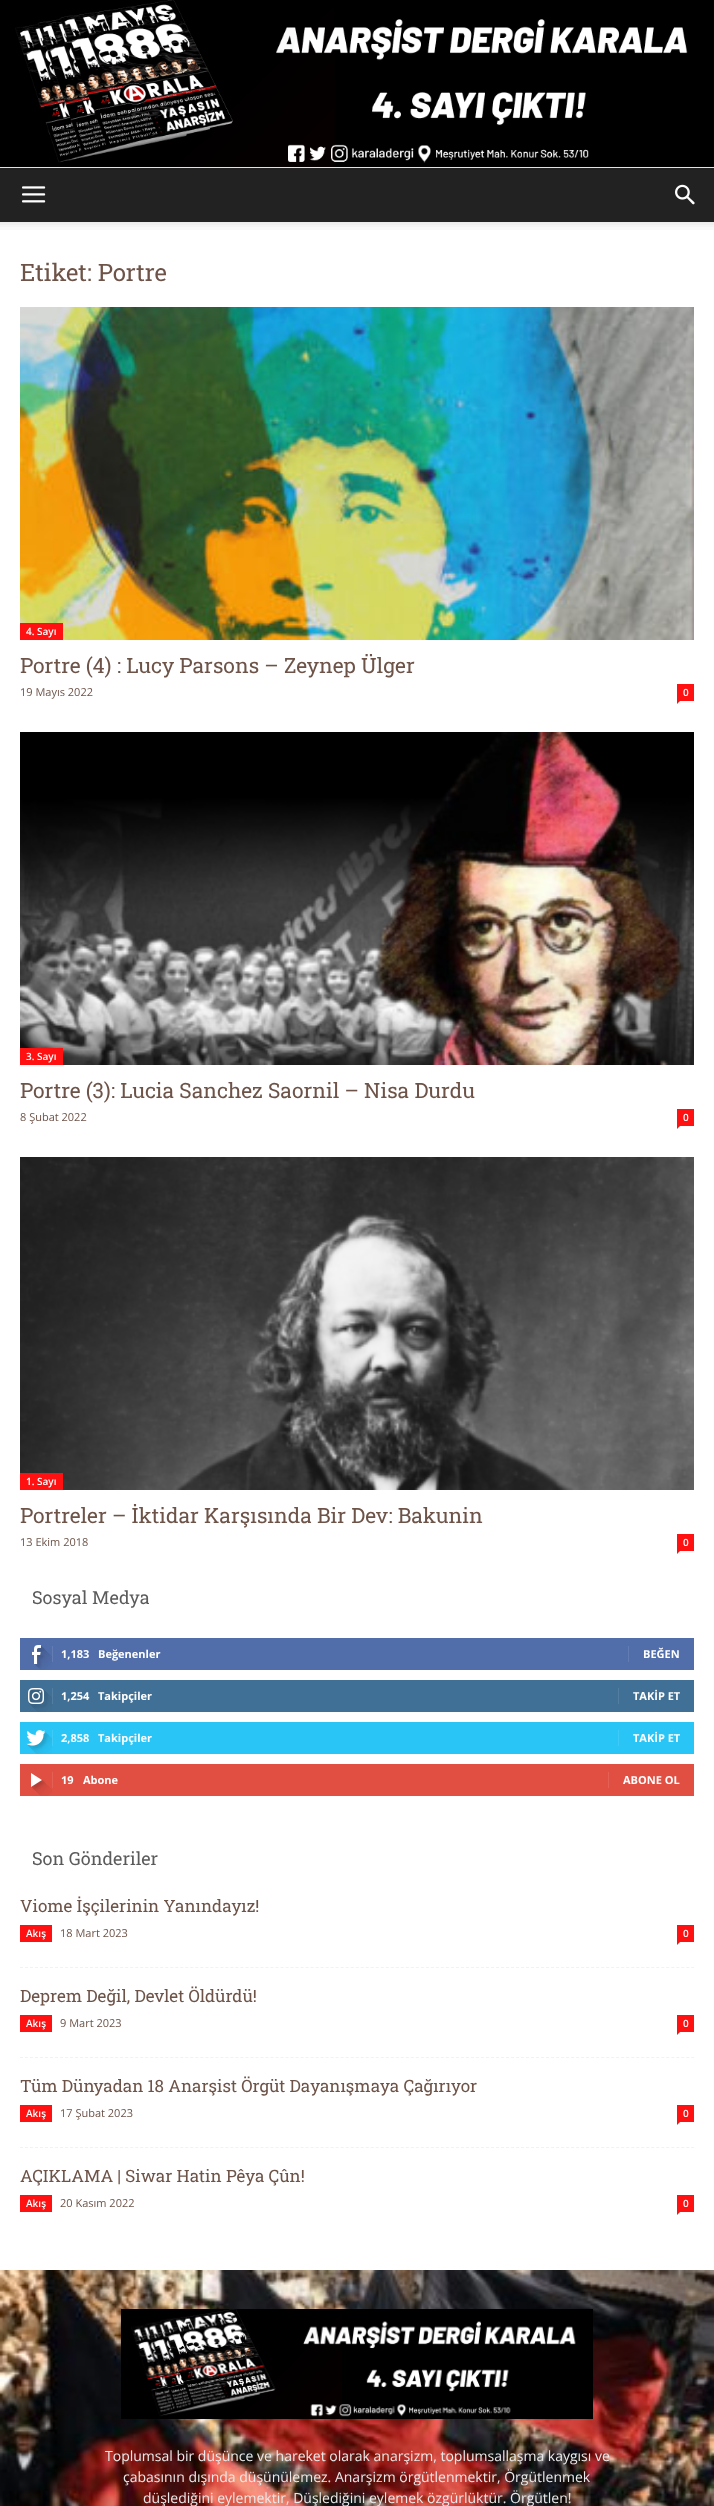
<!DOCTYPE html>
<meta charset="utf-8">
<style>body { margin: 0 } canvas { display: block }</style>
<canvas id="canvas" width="714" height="2506"></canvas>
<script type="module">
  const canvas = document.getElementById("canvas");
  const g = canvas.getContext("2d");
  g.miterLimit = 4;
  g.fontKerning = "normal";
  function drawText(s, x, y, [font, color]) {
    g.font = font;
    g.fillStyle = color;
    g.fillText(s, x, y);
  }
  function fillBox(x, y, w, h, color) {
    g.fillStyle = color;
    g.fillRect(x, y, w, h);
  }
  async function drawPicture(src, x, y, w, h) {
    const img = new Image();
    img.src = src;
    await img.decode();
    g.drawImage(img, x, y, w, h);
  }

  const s1 = ["24px Roboto Slab", "#6D5348"];
  const s2 = ["600 10px Open Sans", "#FFFFFF"];
  const s3 = ["21px Roboto Slab", "#6D5348"];
  const s4 = ["11px Open Sans", "#6D5348"];
  const s5 = ["18px Roboto Slab", "#5B5B5B"];
  const s6 = ["bold 11px Open Sans", "#FFFFFF"];
  const s7 = ["17px Roboto Slab", "#6D5348"];
  const s8 = ["14px Open Sans", "#EAEAEA"];

  fillBox(0, 0, 714, 2506, "#FFFFFF");
  await drawPicture("pic1.png", 0, 0, 714, 167);
  fillBox(0, 167, 714, 1, "#E3E3E3");
  fillBox(0, 168, 714, 54, "#222222");
  await drawPicture("pic2.png", 22, 186, 24, 17);
  await drawPicture("pic3.png", 675, 184, 20, 21);
  await drawPicture("pic4.png", 0, 222, 714, 8);
  drawText("Etiket: Portre", 20, 281, s1);
  await drawPicture("pic5.png", 20, 307, 674, 333);
  fillBox(20, 623, 43, 17, "#FF1111");
  drawText("4. Sayı", 26, 635, s2);
  drawText("Portre (4) : Lucy Parsons – Zeynep Ülger", 20, 673, s3);
  drawText("19 Mayıs 2022", 20, 696, s4);
  fillBox(677, 684, 17, 17, "#FF1111");
  drawText("0", 683, 696, s2);
  g.fillStyle = "#FF1111";
  g.beginPath();
  g.moveTo(677, 701);
  g.lineTo(680, 701);
  g.lineTo(677, 704);
  g.closePath();
  g.fill();
  await drawPicture("pic6.png", 20, 732, 674, 333);
  fillBox(20, 1048, 43, 17, "#FF1111");
  drawText("3. Sayı", 26, 1060, s2);
  drawText("Portre (3): Lucia Sanchez Saornil – Nisa Durdu", 20, 1098, s3);
  drawText("8 Şubat 2022", 20, 1121, s4);
  fillBox(677, 1109, 17, 17, "#FF1111");
  drawText("0", 683, 1121, s2);
  g.fillStyle = "#FF1111";
  g.beginPath();
  g.moveTo(677, 1126);
  g.lineTo(680, 1126);
  g.lineTo(677, 1129);
  g.closePath();
  g.fill();
  await drawPicture("pic7.png", 20, 1157, 674, 333);
  fillBox(20, 1473, 43, 17, "#FF1111");
  drawText("1. Sayı", 26, 1485, s2);
  drawText("Portreler – İktidar Karşısında Bir Dev: Bakunin", 20, 1523, s3);
  drawText("13 Ekim 2018", 20, 1546, s4);
  fillBox(677, 1534, 17, 17, "#FF1111");
  drawText("0", 683, 1546, s2);
  g.fillStyle = "#FF1111";
  g.beginPath();
  g.moveTo(677, 1551);
  g.lineTo(680, 1551);
  g.lineTo(677, 1554);
  g.closePath();
  g.fill();
  drawText("Sosyal Medya", 32, 1604, s5);
  fillBox(20, 1638, 674, 32, "#516EAB");
  await drawPicture("pic8.png", 32, 1645, 20, 25);
  fillBox(52, 1646, 1, 16, "#627DB3");
  drawText("1,183", 61, 1658, s6);
  drawText("Beğenenler", 98, 1658, s6);
  fillBox(628, 1646, 1, 16, "#627DB3");
  drawText("BEĞEN", 643, 1658, s6);
  fillBox(20, 1680, 674, 32, "#417096");
  await drawPicture("pic9.png", 28, 1688, 24, 24);
  fillBox(52, 1688, 1, 16, "#547EA1");
  drawText("1,254", 61, 1700, s6);
  drawText("Takipçiler", 98, 1700, s6);
  fillBox(618, 1688, 1, 16, "#547EA1");
  drawText("TAKİP ET", 633, 1700, s6);
  fillBox(20, 1722, 674, 32, "#29C5F6");
  await drawPicture("pic10.png", 26, 1730, 26, 24);
  fillBox(52, 1730, 1, 16, "#3ECBF7");
  drawText("2,858", 61, 1742, s6);
  drawText("Takipçiler", 98, 1742, s6);
  fillBox(618, 1730, 1, 16, "#3ECBF7");
  drawText("TAKİP ET", 633, 1742, s6);
  fillBox(20, 1764, 674, 32, "#E14E42");
  await drawPicture("pic11.png", 31, 1773, 21, 23);
  fillBox(52, 1772, 1, 16, "#E46055");
  drawText("19", 61, 1784, s6);
  drawText("Abone", 83, 1784, s6);
  fillBox(608, 1772, 1, 16, "#E46055");
  drawText("ABONE OL", 623, 1784, s6);
  drawText("Son Gönderiler", 32, 1865, s5);
  g.beginPath();
  g.moveTo(20, 1967.5);
  g.lineTo(694, 1967.5);
  g.strokeStyle = "#F2F2F2";
  g.setLineDash([3, 2.01]);
  g.stroke();
  drawText("Viome İşçilerinin Yanındayız!", 20, 1912, s7);
  fillBox(20, 1925, 32, 17, "#FF1111");
  drawText("Akış", 26, 1937, s2);
  drawText("18 Mart 2023", 60, 1937, s4);
  fillBox(677, 1925, 17, 17, "#FF1111");
  drawText("0", 683, 1937, s2);
  g.fillStyle = "#FF1111";
  g.beginPath();
  g.moveTo(677, 1942);
  g.lineTo(680, 1942);
  g.lineTo(677, 1945);
  g.closePath();
  g.fill();
  g.beginPath();
  g.moveTo(20, 2057.5);
  g.lineTo(694, 2057.5);
  g.stroke();
  drawText("Deprem Değil, Devlet Öldürdü!", 20, 2002, s7);
  fillBox(20, 2015, 32, 17, "#FF1111");
  drawText("Akış", 26, 2027, s2);
  drawText("9 Mart 2023", 60, 2027, s4);
  fillBox(677, 2015, 17, 17, "#FF1111");
  drawText("0", 683, 2027, s2);
  g.fillStyle = "#FF1111";
  g.beginPath();
  g.moveTo(677, 2032);
  g.lineTo(680, 2032);
  g.lineTo(677, 2035);
  g.closePath();
  g.fill();
  g.beginPath();
  g.moveTo(20, 2147.5);
  g.lineTo(694, 2147.5);
  g.stroke();
  drawText("Tüm Dünyadan 18 Anarşist Örgüt Dayanışmaya Çağırıyor", 20, 2092, s7);
  fillBox(20, 2105, 32, 17, "#FF1111");
  drawText("Akış", 26, 2117, s2);
  drawText("17 Şubat 2023", 60, 2117, s4);
  fillBox(677, 2105, 17, 17, "#FF1111");
  drawText("0", 683, 2117, s2);
  g.fillStyle = "#FF1111";
  g.beginPath();
  g.moveTo(677, 2122);
  g.lineTo(680, 2122);
  g.lineTo(677, 2125);
  g.closePath();
  g.fill();
  drawText("AÇIKLAMA | Siwar Hatin Pêya Çûn!", 20, 2182, s7);
  fillBox(20, 2195, 32, 17, "#FF1111");
  drawText("Akış", 26, 2207, s2);
  drawText("20 Kasım 2022", 60, 2207, s4);
  fillBox(677, 2195, 17, 17, "#FF1111");
  drawText("0", 683, 2207, s2);
  g.fillStyle = "#FF1111";
  g.beginPath();
  g.moveTo(677, 2212);
  g.lineTo(680, 2212);
  g.lineTo(677, 2215);
  g.closePath();
  g.fill();
  await drawPicture("pic12.png", 0, 2270, 714, 236);
  await drawPicture("pic13.png", 121, 2309, 472, 110);
  drawText("Toplumsal bir düşünce ve hareket olarak anarşizm, toplumsallaşma kaygısı ve", 105, 2461, s8);
  drawText("çabasının dışında düşünülemez. Anarşizm örgütlenmektir, Örgütlenmek", 123, 2482, s8);
  drawText("düşlediğini eylemektir, Düşlediğini eylemek özgürlüktür. Örgütlen!", 143, 2503, s8);
</script>
